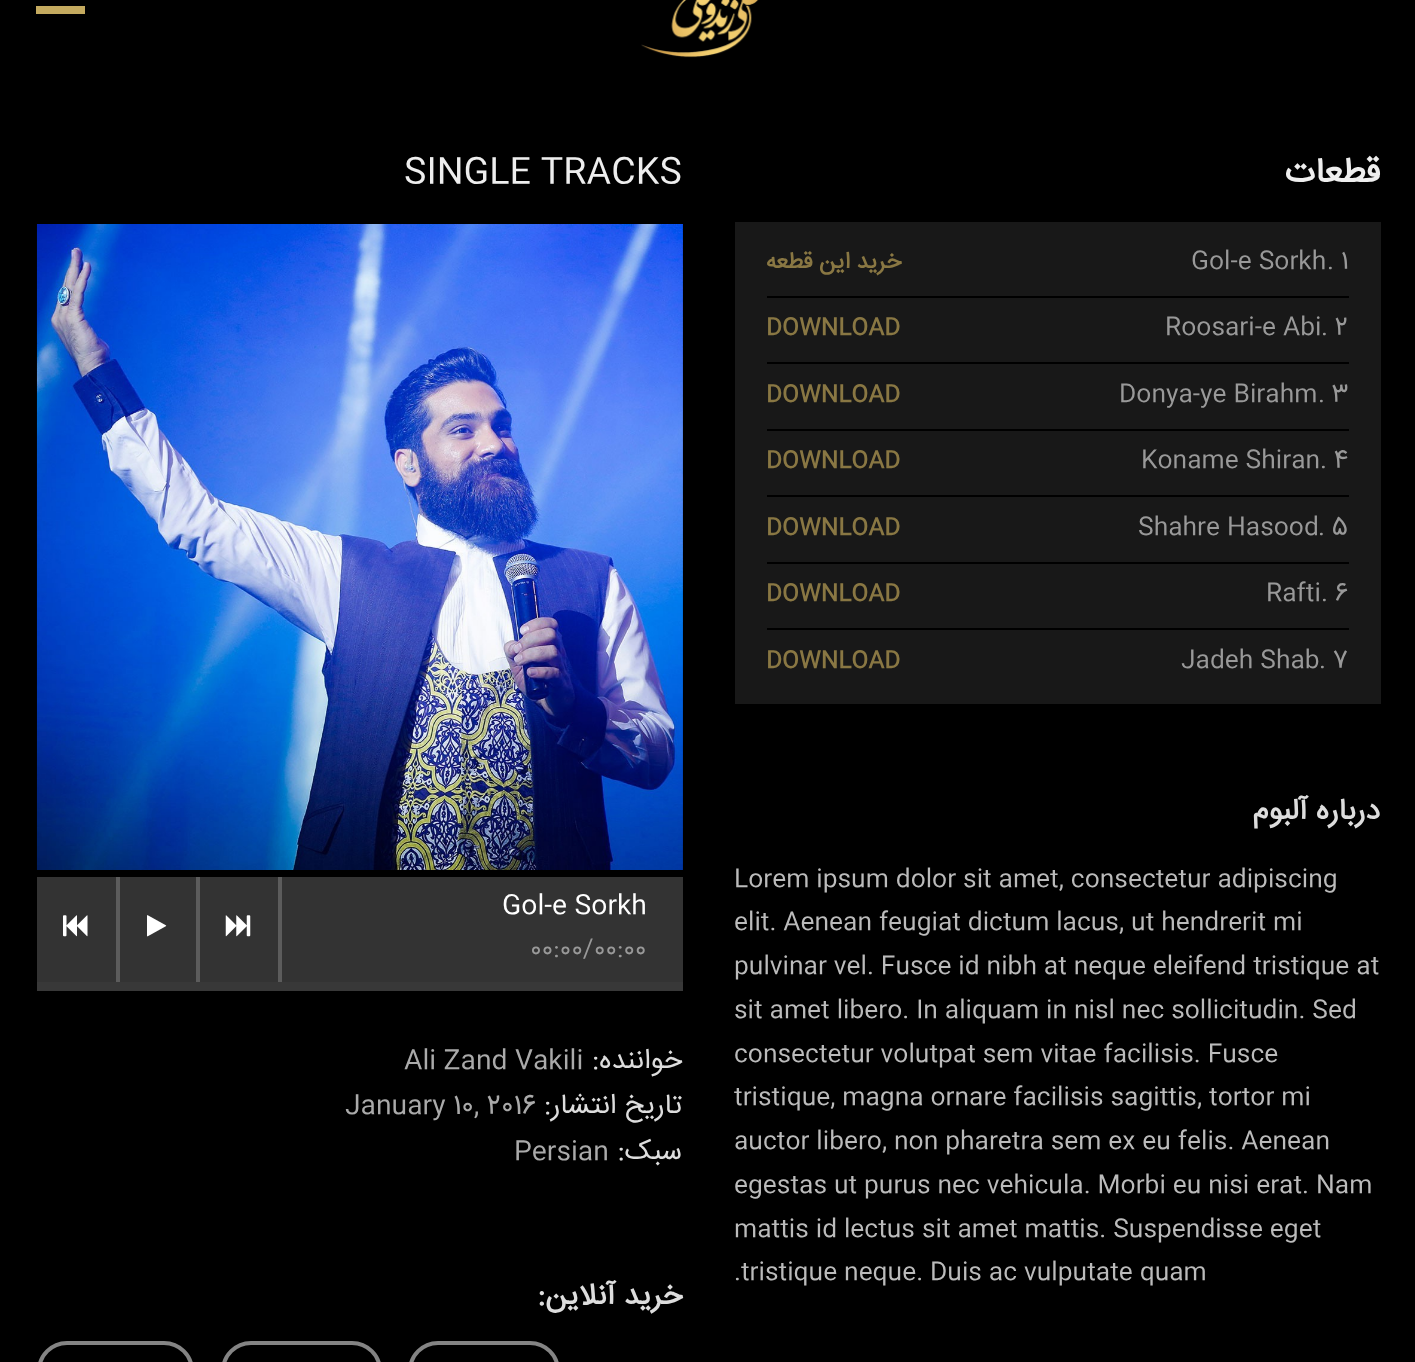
<!DOCTYPE html>
<meta charset="utf-8">
<style>body { margin: 0 } canvas { display: block }</style>
<canvas id="canvas" width="1415" height="1362"></canvas>
<script type="module">
  const canvas = document.getElementById("canvas");
  const g = canvas.getContext("2d");
  g.miterLimit = 4;
  g.fontKerning = "normal";
  function drawText(s, x, y, [font, color]) {
    g.font = font;
    g.fillStyle = color;
    g.fillText(s, x, y);
  }
  function fillBox(x, y, w, h, color) {
    g.fillStyle = color;
    g.fillRect(x, y, w, h);
  }
  async function drawPicture(src, x, y, w, h) {
    const img = new Image();
    img.src = src;
    await img.decode();
    g.drawImage(img, x, y, w, h);
  }

  const s1 = ["35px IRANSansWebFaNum", "#EEEEEE"];
  const s2 = ["26.25px IRANSansWebFaNum", "#FFFFFF"];
  const s3 = ["24.5px IRANSansWebFaNum", "#999999"];
  const s4 = ["26.25px IRANSansWebFaNum", "#AAAAAA"];
  const s5 = ["28px IRANSansWebFaNum", "#DDDDDD"];
  const s6 = ["bold 29.75px IRANSansWebFaNum", "#DDDDDD"];
  const s7 = ["bold 35px IRANSansWebFaNum", "#EEEEEE"];
  const s8 = ["bold 22.75px IRANSansWebFaNum", "#897743"];
  const s9 = ["24.5px IRANSansWebFaNum", "#BBBBBB"];

  fillBox(0, 0, 1415, 1362, "#000000");
  fillBox(36, 6, 49, 8, "#C4AA5F");
  await drawPicture("pic1.png", 641, 0, 118, 58);
  drawText("SINGLE TRACKS", 404, 182, s1);
  await drawPicture("pic2.png", 36, 224, 647, 646);
  fillBox(37, 877, 646, 105, "#333333");
  fillBox(278, 877, 4, 105, "#5C5C5C");
  fillBox(116, 877, 4, 105, "#5C5C5C");
  await drawPicture("pic3.png", 63, 915, 25, 22);
  fillBox(196, 877, 4, 105, "#5C5C5C");
  await drawPicture("pic4.png", 147, 915, 20, 22);
  await drawPicture("pic5.png", 225, 915, 26, 22);
  drawText("Gol-e Sorkh", 502, 913, s2);
  drawText("00:00/00:00", 530, 956, s3);
  fillBox(37, 982, 646, 9, "#383838");
  drawText("Ali Zand Vakili", 404, 1068, s4);
  g.direction = "rtl";
  drawText("خواننده:", 682, 1068, s5);
  g.direction = "ltr";
  drawText("January 10, 2016", 345, 1113, s4);
  g.direction = "rtl";
  drawText("تاریخ انتشار:", 682, 1113, s5);
  g.direction = "ltr";
  drawText("Persian", 514, 1159, s4);
  g.direction = "rtl";
  drawText("سبک:", 682, 1159, s5);
  drawText("خرید آنلاین:", 682, 1304, s6);
  g.beginPath();
  g.roundRect(39, 1343, 153, 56, 33);
  g.strokeStyle = "#848484";
  g.lineWidth = 4;
  g.stroke();
  g.beginPath();
  g.roundRect(223, 1343, 157, 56, 33);
  g.stroke();
  g.beginPath();
  g.roundRect(410, 1343, 148, 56, 33);
  g.stroke();
  drawText("قطعات", 1380, 182, s7);
  fillBox(735, 222, 646, 482, "#181818");
  fillBox(767, 296, 582, 2, "#000000");
  drawText("خرید این قطعه", 901, 268, s8);
  g.direction = "ltr";
  drawText("Gol-e Sorkh", 1191, 268, s3);
  drawText(". 1", 1327, 268, s3);
  fillBox(767, 362, 582, 2, "#000000");
  drawText("DOWNLOAD", 766, 334, s8);
  drawText("Roosari-e Abi", 1165, 334, s3);
  drawText(". 2", 1321, 334, s3);
  fillBox(767, 429, 582, 2, "#000000");
  drawText("DOWNLOAD", 766, 401, s8);
  drawText("Donya-ye Birahm", 1119, 401, s3);
  drawText(". 3", 1318, 401, s3);
  fillBox(767, 495, 582, 2, "#000000");
  drawText("DOWNLOAD", 766, 467, s8);
  drawText("Koname Shiran", 1141, 467, s3);
  drawText(". 4", 1320, 467, s3);
  fillBox(767, 562, 582, 2, "#000000");
  drawText("DOWNLOAD", 766, 534, s8);
  drawText("Shahre Hasood", 1138, 534, s3);
  drawText(". 5", 1318, 534, s3);
  fillBox(767, 628, 582, 2, "#000000");
  drawText("DOWNLOAD", 766, 600, s8);
  drawText("Rafti", 1266, 600, s3);
  drawText(". 6", 1321, 600, s3);
  drawText("DOWNLOAD", 766, 667, s8);
  drawText("Jadeh Shab", 1181, 667, s3);
  drawText(". 7", 1319, 667, s3);
  g.direction = "rtl";
  drawText("درباره آلبوم", 1380, 819, s6);
  g.direction = "ltr";
  drawText("Lorem ipsum dolor sit amet, consectetur adipiscing", 734, 886, s9);
  drawText("elit. Aenean feugiat dictum lacus, ut hendrerit mi", 734, 929, s9);
  drawText("pulvinar vel. Fusce id nibh at neque eleifend tristique at", 734, 973, s9);
  drawText("sit amet libero. In aliquam in nisl nec sollicitudin. Sed", 734, 1017, s9);
  drawText("consectetur volutpat sem vitae facilisis. Fusce", 734, 1061, s9);
  drawText("tristique, magna ornare facilisis sagittis, tortor mi", 734, 1104, s9);
  drawText("auctor libero, non pharetra sem ex eu felis. Aenean", 734, 1148, s9);
  drawText("egestas ut purus nec vehicula. Morbi eu nisi erat. Nam", 734, 1192, s9);
  drawText("mattis id lectus sit amet mattis. Suspendisse eget", 734, 1236, s9);
  drawText(".tristique neque. Duis ac vulputate quam", 734, 1279, s9);
</script>
